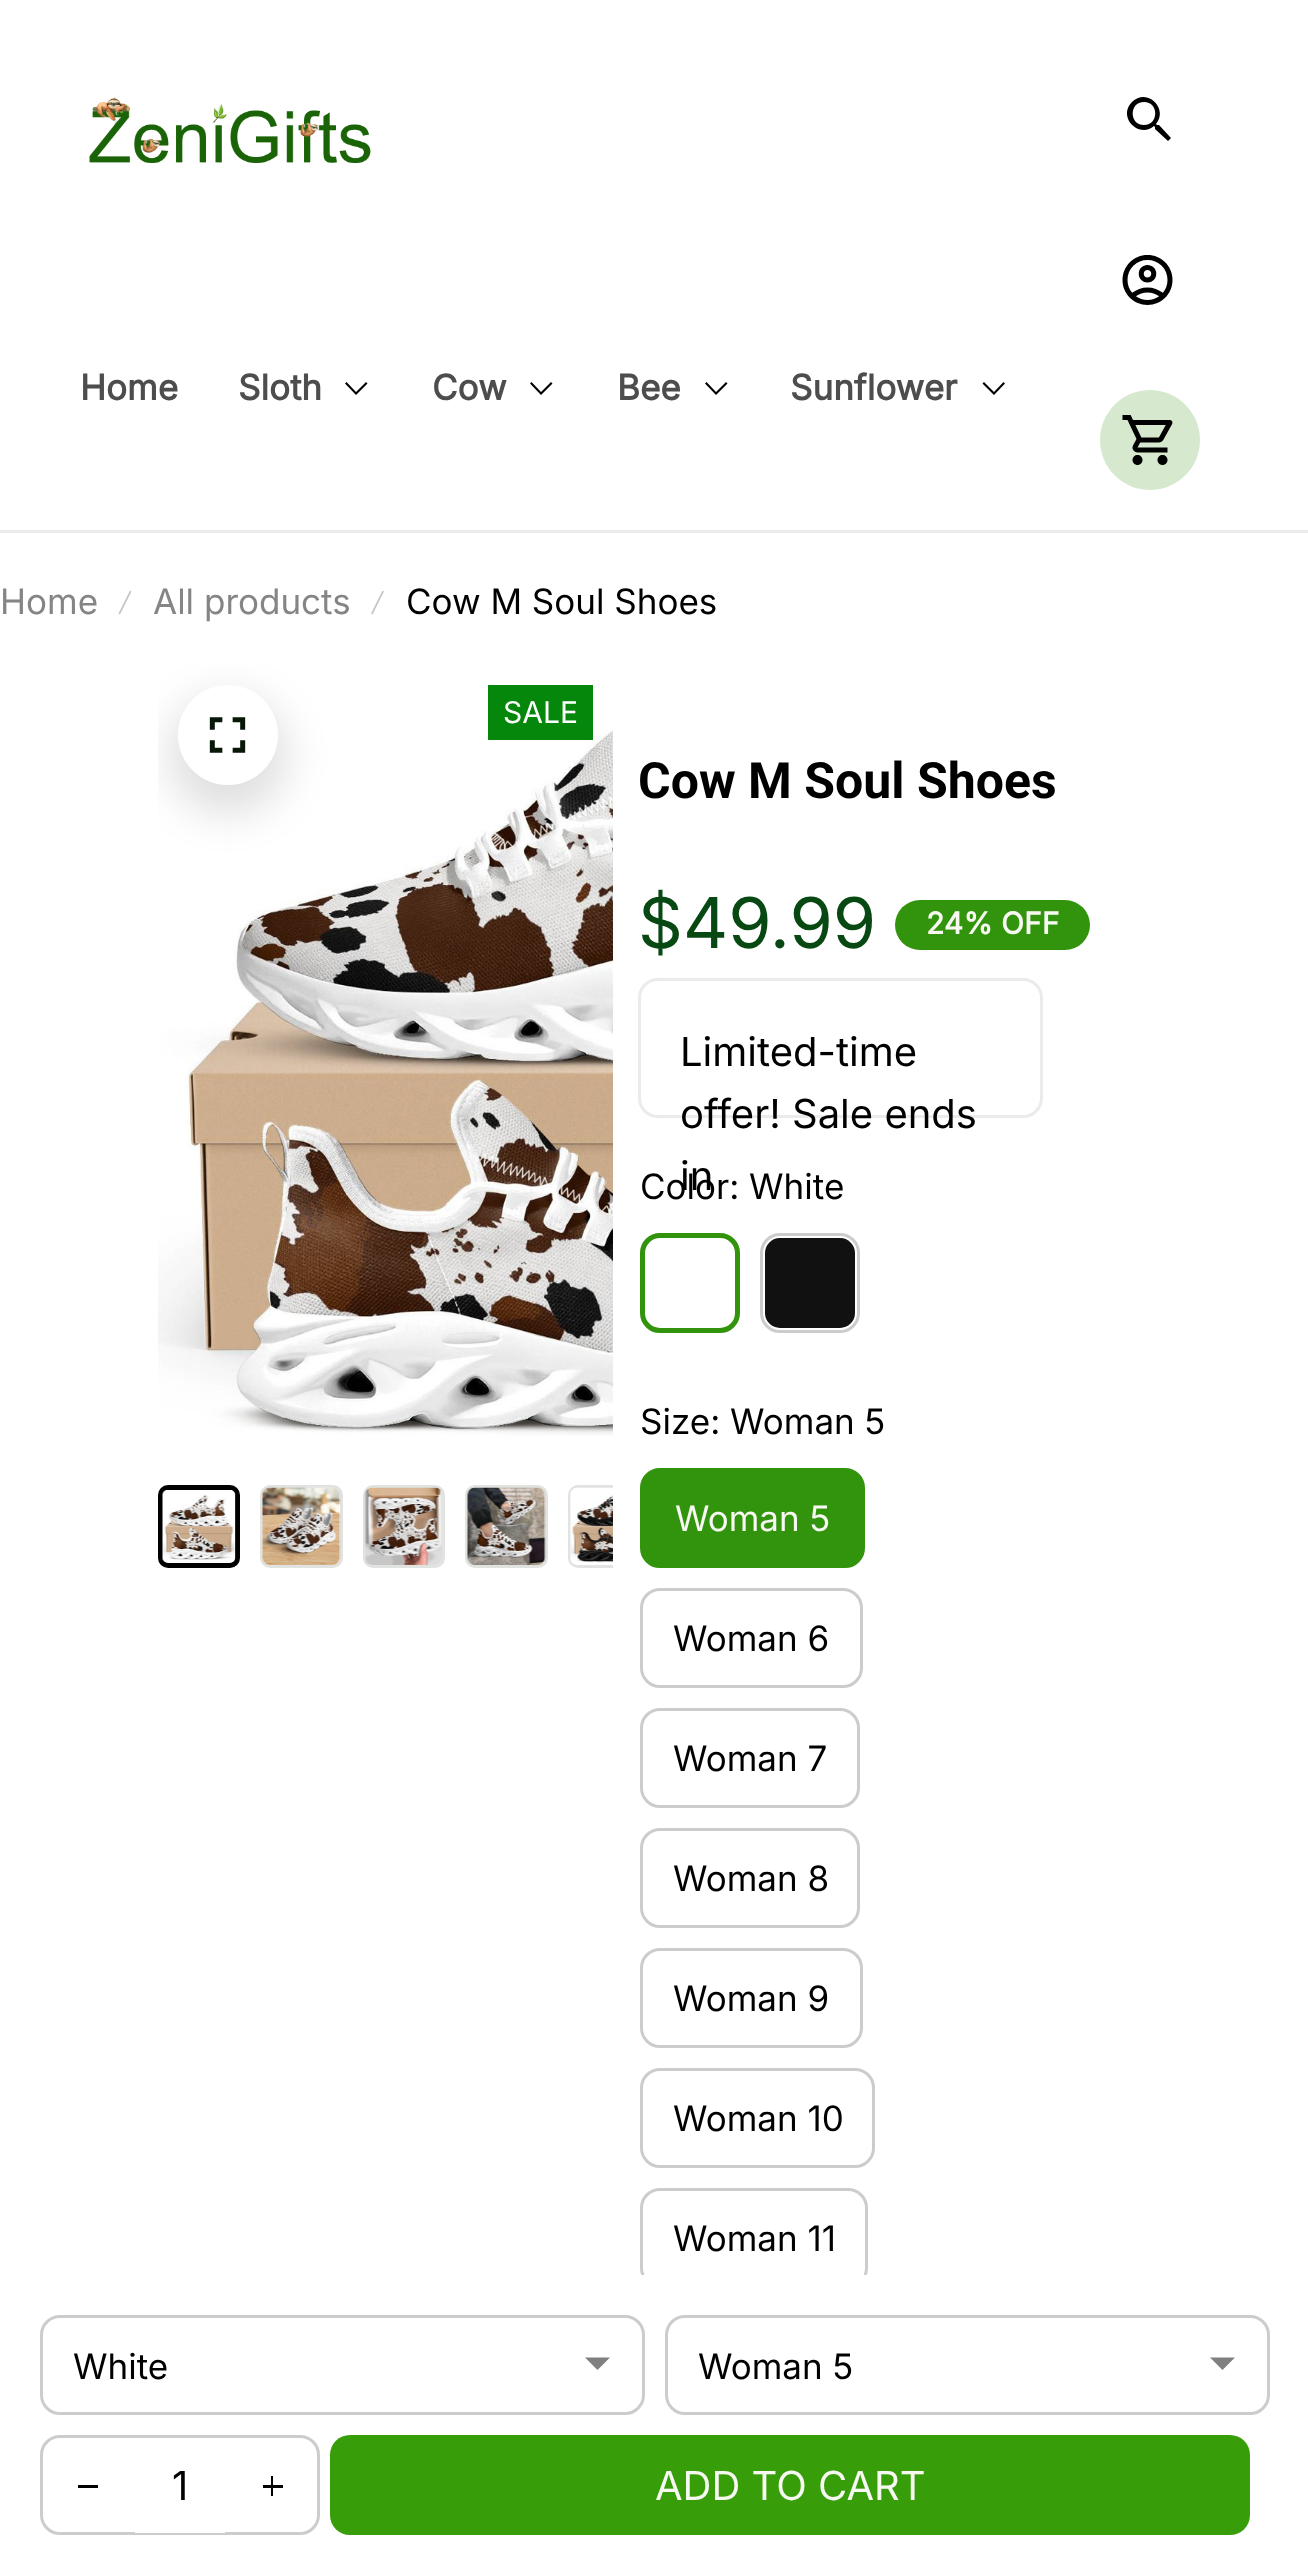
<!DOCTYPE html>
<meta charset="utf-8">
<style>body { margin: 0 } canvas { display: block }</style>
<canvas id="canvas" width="1308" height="2575"></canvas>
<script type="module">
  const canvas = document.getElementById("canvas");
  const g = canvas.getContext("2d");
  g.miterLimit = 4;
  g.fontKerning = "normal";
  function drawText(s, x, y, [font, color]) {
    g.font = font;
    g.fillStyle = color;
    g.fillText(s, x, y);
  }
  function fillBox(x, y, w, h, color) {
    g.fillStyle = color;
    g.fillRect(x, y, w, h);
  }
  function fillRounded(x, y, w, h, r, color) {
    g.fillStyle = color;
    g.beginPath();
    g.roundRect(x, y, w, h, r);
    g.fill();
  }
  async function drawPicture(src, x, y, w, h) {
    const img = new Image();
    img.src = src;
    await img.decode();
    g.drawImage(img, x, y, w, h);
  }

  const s1 = ["bold 35px Inter", "#4D4D4D"];
  const s2 = ["35px Inter", "#858585"];
  const s3 = ["35px Inter", "#000000"];
  const s4 = ["30px Inter", "#FFFFFF"];
  const s5 = ["bold 50px Roboto", "#000000"];
  const s6 = ["70px Inter", "#084913"];
  const s7 = ["bold 30px Inter", "#F7F8F2"];
  const s8 = ["40px Inter", "#000000"];
  const s9 = ["35px Inter", "#F7F8F2"];
  const s10 = ["40px Inter", "#F7F8F2"];

  fillBox(0, 0, 1308, 2575, "#FFFFFF");
  await drawPicture("pic1.png", 89, 97, 282, 66);
  drawText("Home", 80, 400, s1);
  drawText("Sloth", 238, 400, s1);
  g.fillStyle = "#000000";
  g.beginPath();
  g.moveTo(356, 395);
  g.lineTo(367.5, 383.5);
  g.lineTo(366, 382);
  g.lineTo(356, 392);
  g.lineTo(346.5, 382);
  g.lineTo(345, 383.5);
  g.closePath();
  g.fill();
  drawText("Cow", 432, 400, s1);
  g.fillStyle = "#000000";
  g.beginPath();
  g.moveTo(541, 395);
  g.lineTo(552.5, 383.5);
  g.lineTo(551, 382);
  g.lineTo(541, 392);
  g.lineTo(531.5, 382);
  g.lineTo(530, 383.5);
  g.closePath();
  g.fill();
  drawText("Bee", 617, 400, s1);
  g.fillStyle = "#000000";
  g.beginPath();
  g.moveTo(716, 395);
  g.lineTo(727.5, 383.5);
  g.lineTo(726, 382);
  g.lineTo(716, 392);
  g.lineTo(706.5, 382);
  g.lineTo(705, 383.5);
  g.closePath();
  g.fill();
  drawText("Sunflower", 790, 400, s1);
  g.fillStyle = "#000000";
  g.beginPath();
  g.moveTo(994, 395);
  g.lineTo(1005, 383.5);
  g.lineTo(1003.5, 382);
  g.lineTo(994, 392);
  g.lineTo(984, 382);
  g.lineTo(982.5, 383.5);
  g.closePath();
  g.fill();
  g.beginPath();
  g.moveTo(1159, 125);
  g.lineTo(1157, 125);
  g.lineTo(1156, 124);
  g.bezierCurveTo(1169, 109, 1147, 87, 1132, 102);
  g.bezierCurveTo(1117, 117, 1139, 139, 1154, 126);
  g.lineTo(1155, 127);
  g.lineTo(1155, 129);
  g.lineTo(1168, 141);
  g.lineTo(1171, 138);
  g.closePath();
  g.moveTo(1144, 125);
  g.bezierCurveTo(1129, 125, 1129, 102, 1144, 102);
  g.bezierCurveTo(1159, 102, 1159, 125, 1144, 125);
  g.closePath();
  g.fill();
  await drawPicture("pic2.png", 1122, 255, 51, 50);
  g.fillStyle = "#D6E9CE";
  g.beginPath();
  g.arc(1150, 440, 50, 0, Math.PI * 2);
  g.fill();
  await drawPicture("pic3.png", 1122, 415, 51, 50);
  fillBox(0, 530, 1308, 3, "#EBEBEB");
  drawText("Home", 0, 614, s2);
  g.fillStyle = "#C4C7C4";
  g.beginPath();
  g.moveTo(120, 614.5);
  g.lineTo(118.5, 613.5);
  g.lineTo(130, 590.5);
  g.lineTo(131.5, 591.5);
  g.closePath();
  g.fill();
  drawText("All products", 153, 614, s2);
  g.fillStyle = "#C4C7C4";
  g.beginPath();
  g.moveTo(372.5, 614.5);
  g.lineTo(371, 613.5);
  g.lineTo(382.5, 590.5);
  g.lineTo(384, 591.5);
  g.closePath();
  g.fill();
  drawText("Cow M Soul Shoes", 406, 614, s3);
  await drawPicture("pic5.png", 158, 730, 455, 706);
  g.save();
  g.beginPath();
  g.rect(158, 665, 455, 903);
  g.clip();
  g.beginPath();
  g.moveTo(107, 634);
  g.lineTo(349, 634);
  g.lineTo(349, 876);
  g.lineTo(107, 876);
  g.closePath();
  g.moveTo(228, 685);
  g.bezierCurveTo(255.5, 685, 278, 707.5, 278, 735);
  g.bezierCurveTo(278, 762.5, 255.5, 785, 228, 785);
  g.bezierCurveTo(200.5, 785, 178, 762.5, 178, 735);
  g.bezierCurveTo(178, 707.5, 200.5, 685, 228, 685);
  g.closePath();
  g.clip("evenodd");
  g.fillStyle = "rgba(0, 0, 0, 0.12)";
  g.filter = "blur(20px)";
  g.beginPath();
  g.roundRect(168, 695, 120, 120, 60);
  g.fill();
  g.filter = "none";
  g.restore();
  g.fillStyle = "rgba(255, 255, 255, 0.32)";
  g.beginPath();
  g.arc(228, 735, 50, 0, Math.PI * 2);
  g.fill();
  await drawPicture("pic4.png", 209, 717, 37, 36);
  fillBox(488, 685, 105, 55, "#05870C");
  drawText("SALE", 503, 723, s4);
  g.beginPath();
  g.roundRect(160.5, 1487.5, 77, 78, 7.5);
  g.strokeStyle = "#000000";
  g.lineWidth = 5;
  g.stroke();
  await drawPicture("pic6.png", 162, 1490, 74, 73);
  g.beginPath();
  g.roundRect(261.5, 1486.5, 80, 80, 8.5);
  g.strokeStyle = "#E1E3E1";
  g.lineWidth = 3;
  g.stroke();
  await drawPicture("pic7.png", 262, 1487, 79, 78);
  g.beginPath();
  g.roundRect(364.5, 1486.5, 79, 80, 8.5);
  g.stroke();
  await drawPicture("pic8.png", 364, 1487, 78, 78);
  g.beginPath();
  g.roundRect(466.5, 1486.5, 80, 80, 8.5);
  g.stroke();
  await drawPicture("pic9.png", 467, 1487, 79, 78);
  g.save();
  g.beginPath();
  g.rect(158, 1465, 455, 103);
  g.clip();
  g.beginPath();
  g.roundRect(569.5, 1486.5, 79, 80, 8.5);
  g.stroke();
  g.restore();
  await drawPicture("pic10.png", 570, 1487, 43, 78);
  drawText("Cow M Soul Shoes", 638, 798, s5);
  drawText("$49.99", 638, 948, s6);
  fillRounded(895, 900, 195, 50, 25, "#32930C");
  drawText("24% OFF", 926, 934, s7);
  g.beginPath();
  g.roundRect(639.5, 979.5, 402, 137, 18.5);
  g.strokeStyle = "#EBEBEB";
  g.stroke();
  drawText("Limited-time", 680, 1066, s8);
  drawText("offer! Sale ends", 680, 1128, s8);
  drawText("Color: White", 640, 1199, s3);
  drawText("in", 680, 1190, s8);
  g.beginPath();
  g.roundRect(642.5, 1235.5, 95, 95, 17.5);
  g.strokeStyle = "#32930C";
  g.lineWidth = 5;
  g.stroke();
  g.beginPath();
  g.roundRect(761.5, 1234.5, 97, 97, 18.5);
  g.strokeStyle = "#CCCCCC";
  g.lineWidth = 3;
  g.stroke();
  fillRounded(765, 1238, 90, 90, 15, "#111111");
  drawText("Size: Woman 5", 640, 1434, s3);
  g.fillStyle = "#32930C";
  g.beginPath();
  g.roundRect(642.5, 1470.5, 220, 95, 17.5);
  g.fill();
  g.strokeStyle = "#32930C";
  g.lineWidth = 5;
  g.stroke();
  drawText("Woman 5", 675, 1531, s9);
  g.beginPath();
  g.roundRect(641.5, 1589.5, 220, 97, 18.5);
  g.strokeStyle = "#CCCCCC";
  g.lineWidth = 3;
  g.stroke();
  drawText("Woman 6", 673, 1651, s3);
  g.beginPath();
  g.roundRect(641.5, 1709.5, 217, 97, 18.5);
  g.stroke();
  drawText("Woman 7", 673, 1771, s3);
  g.beginPath();
  g.roundRect(641.5, 1829.5, 217, 97, 18.5);
  g.stroke();
  drawText("Woman 8", 673, 1891, s3);
  g.beginPath();
  g.roundRect(641.5, 1949.5, 220, 97, 18.5);
  g.stroke();
  drawText("Woman 9", 673, 2011, s3);
  g.beginPath();
  g.roundRect(641.5, 2069.5, 232, 97, 18.5);
  g.stroke();
  drawText("Woman 10", 673, 2131, s3);
  g.beginPath();
  g.roundRect(641.5, 2189.5, 225, 97, 18.5);
  g.stroke();
  drawText("Woman 11", 673, 2251, s3);
  fillBox(641, 2275, 226, 13, "#FFFFFF");
  g.fillStyle = "#808080";
  g.beginPath();
  g.moveTo(585, 2357.5);
  g.lineTo(610, 2357.5);
  g.lineTo(597.5, 2370);
  g.closePath();
  g.fill();
  g.beginPath();
  g.roundRect(41.5, 2316.5, 602, 97, 18.5);
  g.stroke();
  drawText("White", 73, 2379, s3);
  g.fillStyle = "#808080";
  g.beginPath();
  g.moveTo(1210, 2357.5);
  g.lineTo(1235, 2357.5);
  g.lineTo(1222.5, 2370);
  g.closePath();
  g.fill();
  g.beginPath();
  g.roundRect(666.5, 2316.5, 602, 97, 18.5);
  g.stroke();
  drawText("Woman 5", 698, 2379, s3);
  g.beginPath();
  g.roundRect(41.5, 2436.5, 277, 97, 18.5);
  g.stroke();
  fillBox(78, 2485, 20, 3, "#000000");
  fillBox(135, 2532, 90, 1, "#FFFFFF");
  drawText("1", 172, 2500, s8);
  fillBox(263, 2485, 20, 3, "#000000");
  fillBox(271, 2476, 2, 20, "#000000");
  fillRounded(330, 2435, 920, 100, 20, "#379E09");
  drawText("ADD TO CART", 655, 2500, s10);
</script>
